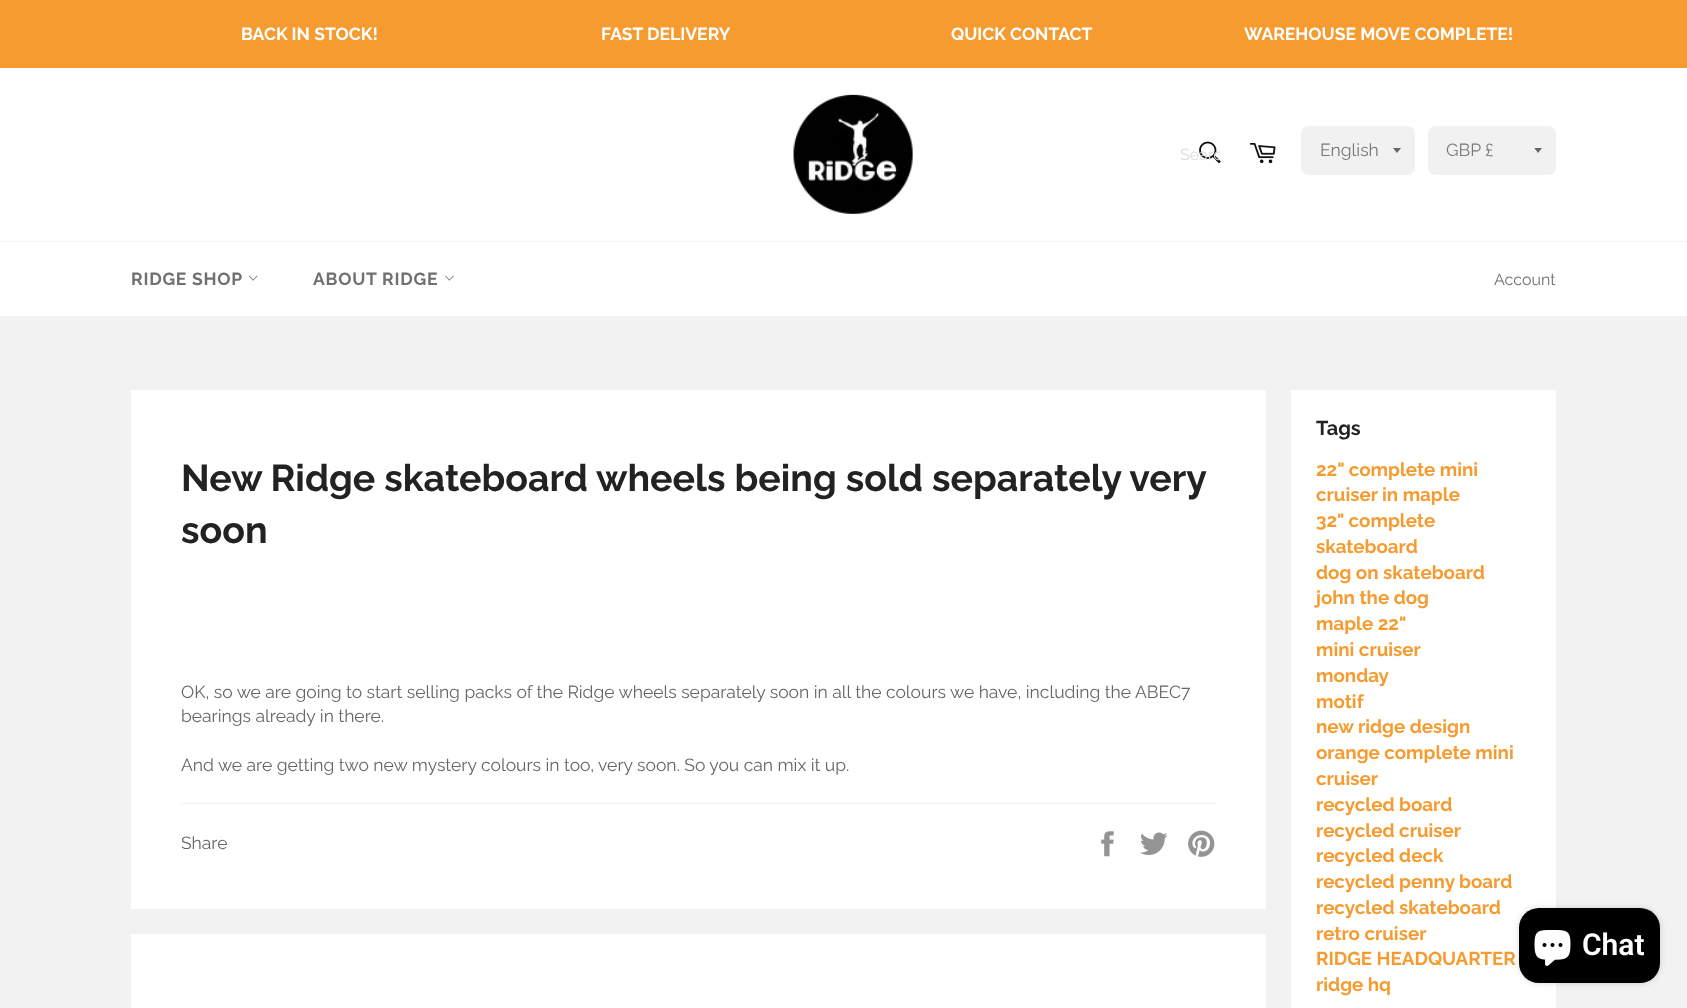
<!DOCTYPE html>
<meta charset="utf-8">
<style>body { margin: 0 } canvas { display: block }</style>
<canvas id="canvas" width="1687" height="1008"></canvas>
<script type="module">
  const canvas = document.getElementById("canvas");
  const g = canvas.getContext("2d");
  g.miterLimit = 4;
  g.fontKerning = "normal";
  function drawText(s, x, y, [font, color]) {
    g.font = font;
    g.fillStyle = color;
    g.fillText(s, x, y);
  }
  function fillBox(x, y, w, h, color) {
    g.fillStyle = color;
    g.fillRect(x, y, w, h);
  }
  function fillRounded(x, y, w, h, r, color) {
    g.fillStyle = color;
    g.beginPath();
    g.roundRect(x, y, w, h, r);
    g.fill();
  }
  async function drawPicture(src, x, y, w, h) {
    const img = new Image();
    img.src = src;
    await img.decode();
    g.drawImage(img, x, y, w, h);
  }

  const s1 = ["bold 17.5px Raleway", "#FFFFFF"];
  const s2 = ["16px Raleway", "#DBDBDB"];
  const s3 = ["17.5px Raleway", "#797979"];
  const s4 = ["bold 17.5px Raleway", "#707070"];
  const s5 = ["16px Raleway", "#707070"];
  const s6 = ["bold 37.5px Raleway", "#222222"];
  const s7 = ["17.5px Raleway", "#666666"];
  const s8 = ["bold 20px Raleway", "#222222"];
  const s9 = ["bold 18.75px Raleway", "#F59B30"];
  const s10 = ["600 30px Roboto", "#FFFFFF"];

  fillBox(0, 0, 1687, 1008, "#F2F2F2");
  fillBox(0, 68, 1687, 173, "#FFFFFF");
  fillBox(0, 0, 1687, 68, "#F59B30");
  drawText("BACK IN STOCK!", 241, 40, s1);
  drawText("FAST DELIVERY", 601, 40, s1);
  drawText("QUICK CONTACT", 951, 40, s1);
  drawText("WAREHOUSE MOVE COMPLETE!", 1244, 40, s1);
  await drawPicture("pic1.png", 793, 94, 120, 120);
  await drawPicture("pic2.png", 1199, 141, 22, 23);
  g.save();
  g.beginPath();
  g.rect(1180, 145, 40, 19);
  g.clip();
  drawText("Searc", 1180, 160, s2);
  g.restore();
  await drawPicture("pic3.png", 1249, 143, 27, 21);
  fillRounded(1301, 126, 114, 49, 8, "#F1F1F1");
  g.save();
  g.beginPath();
  g.rect(1393, 148, 10, 6);
  g.clip();
  g.fillStyle = "#666666";
  g.beginPath();
  g.moveTo(1392.5, 147.5);
  g.lineTo(1397, 153);
  g.lineTo(1401.5, 147.5);
  g.closePath();
  g.fill();
  g.restore();
  drawText("English", 1320, 156, s3);
  fillRounded(1428, 126, 128, 49, 8, "#F1F1F1");
  g.save();
  g.beginPath();
  g.rect(1534, 148, 10, 6);
  g.clip();
  g.fillStyle = "#666666";
  g.beginPath();
  g.moveTo(1534, 147.5);
  g.lineTo(1538, 153);
  g.lineTo(1542.5, 147.5);
  g.closePath();
  g.fill();
  g.restore();
  drawText("GBP £", 1446, 156, s3);
  fillBox(0, 242, 1687, 74, "#FFFFFF");
  g.letterSpacing = "0.75px";
  drawText("RIDGE SHOP", 131, 285, s4);
  await drawPicture("pic4.png", 248, 275, 10, 6);
  drawText("ABOUT RIDGE", 313, 285, s4);
  await drawPicture("pic5.png", 445, 275, 9, 6);
  g.letterSpacing = "0px";
  drawText("Account", 1494, 285, s5);
  fillBox(131, 390, 1135, 519, "#FFFFFF");
  drawText("New Ridge skateboard wheels being sold separately very", 181, 491, s6);
  drawText("soon", 181, 543, s6);
  drawText("OK, so we are going to start selling packs of the Ridge wheels separately soon in all the colours we have, including the ABEC7", 181, 698, s7);
  drawText("bearings already in there.", 181, 722, s7);
  drawText("And we are getting two new mystery colours in too, very soon. So you can mix it up.", 181, 771, s7);
  fillBox(181, 803, 1035, 1, "#F2F2F2");
  drawText("Share", 181, 849, s7);
  await drawPicture("pic6.png", 1101, 831, 13, 26);
  await drawPicture("pic7.png", 1140, 832, 28, 23);
  await drawPicture("pic8.png", 1188, 830, 27, 27);
  fillBox(131, 934, 1135, 74, "#FFFFFF");
  fillBox(1291, 390, 265, 618, "#FFFFFF");
  drawText("Tags", 1316, 435, s8);
  drawText("22\" complete mini", 1316, 476, s9);
  drawText("cruiser in maple", 1316, 501, s9);
  drawText("32\" complete", 1316, 527, s9);
  drawText("skateboard", 1316, 553, s9);
  drawText("dog on skateboard", 1316, 579, s9);
  drawText("john the dog", 1316, 604, s9);
  drawText("maple 22\"", 1316, 630, s9);
  drawText("mini cruiser", 1316, 656, s9);
  drawText("monday", 1316, 682, s9);
  drawText("motif", 1316, 708, s9);
  drawText("new ridge design", 1316, 733, s9);
  drawText("orange complete mini", 1316, 759, s9);
  drawText("cruiser", 1316, 785, s9);
  drawText("recycled board", 1316, 811, s9);
  drawText("recycled cruiser", 1316, 837, s9);
  drawText("recycled deck", 1316, 862, s9);
  drawText("recycled penny board", 1316, 888, s9);
  drawText("recycled skateboard", 1316, 914, s9);
  drawText("retro cruiser", 1316, 940, s9);
  drawText("RIDGE HEADQUARTER", 1316, 965, s9);
  drawText("ridge hq", 1316, 991, s9);
  g.fillStyle = "rgba(0, 0, 0, 0.15)";
  g.filter = "blur(3px)";
  g.beginPath();
  g.roundRect(1519, 908, 141, 75, 20);
  g.fill();
  g.filter = "none";
  fillRounded(1519, 908, 141, 75, 20, "#000000");
  await drawPicture("pic9.png", 1534, 930, 37, 36);
  drawText("Chat", 1582, 955, s10);
</script>
